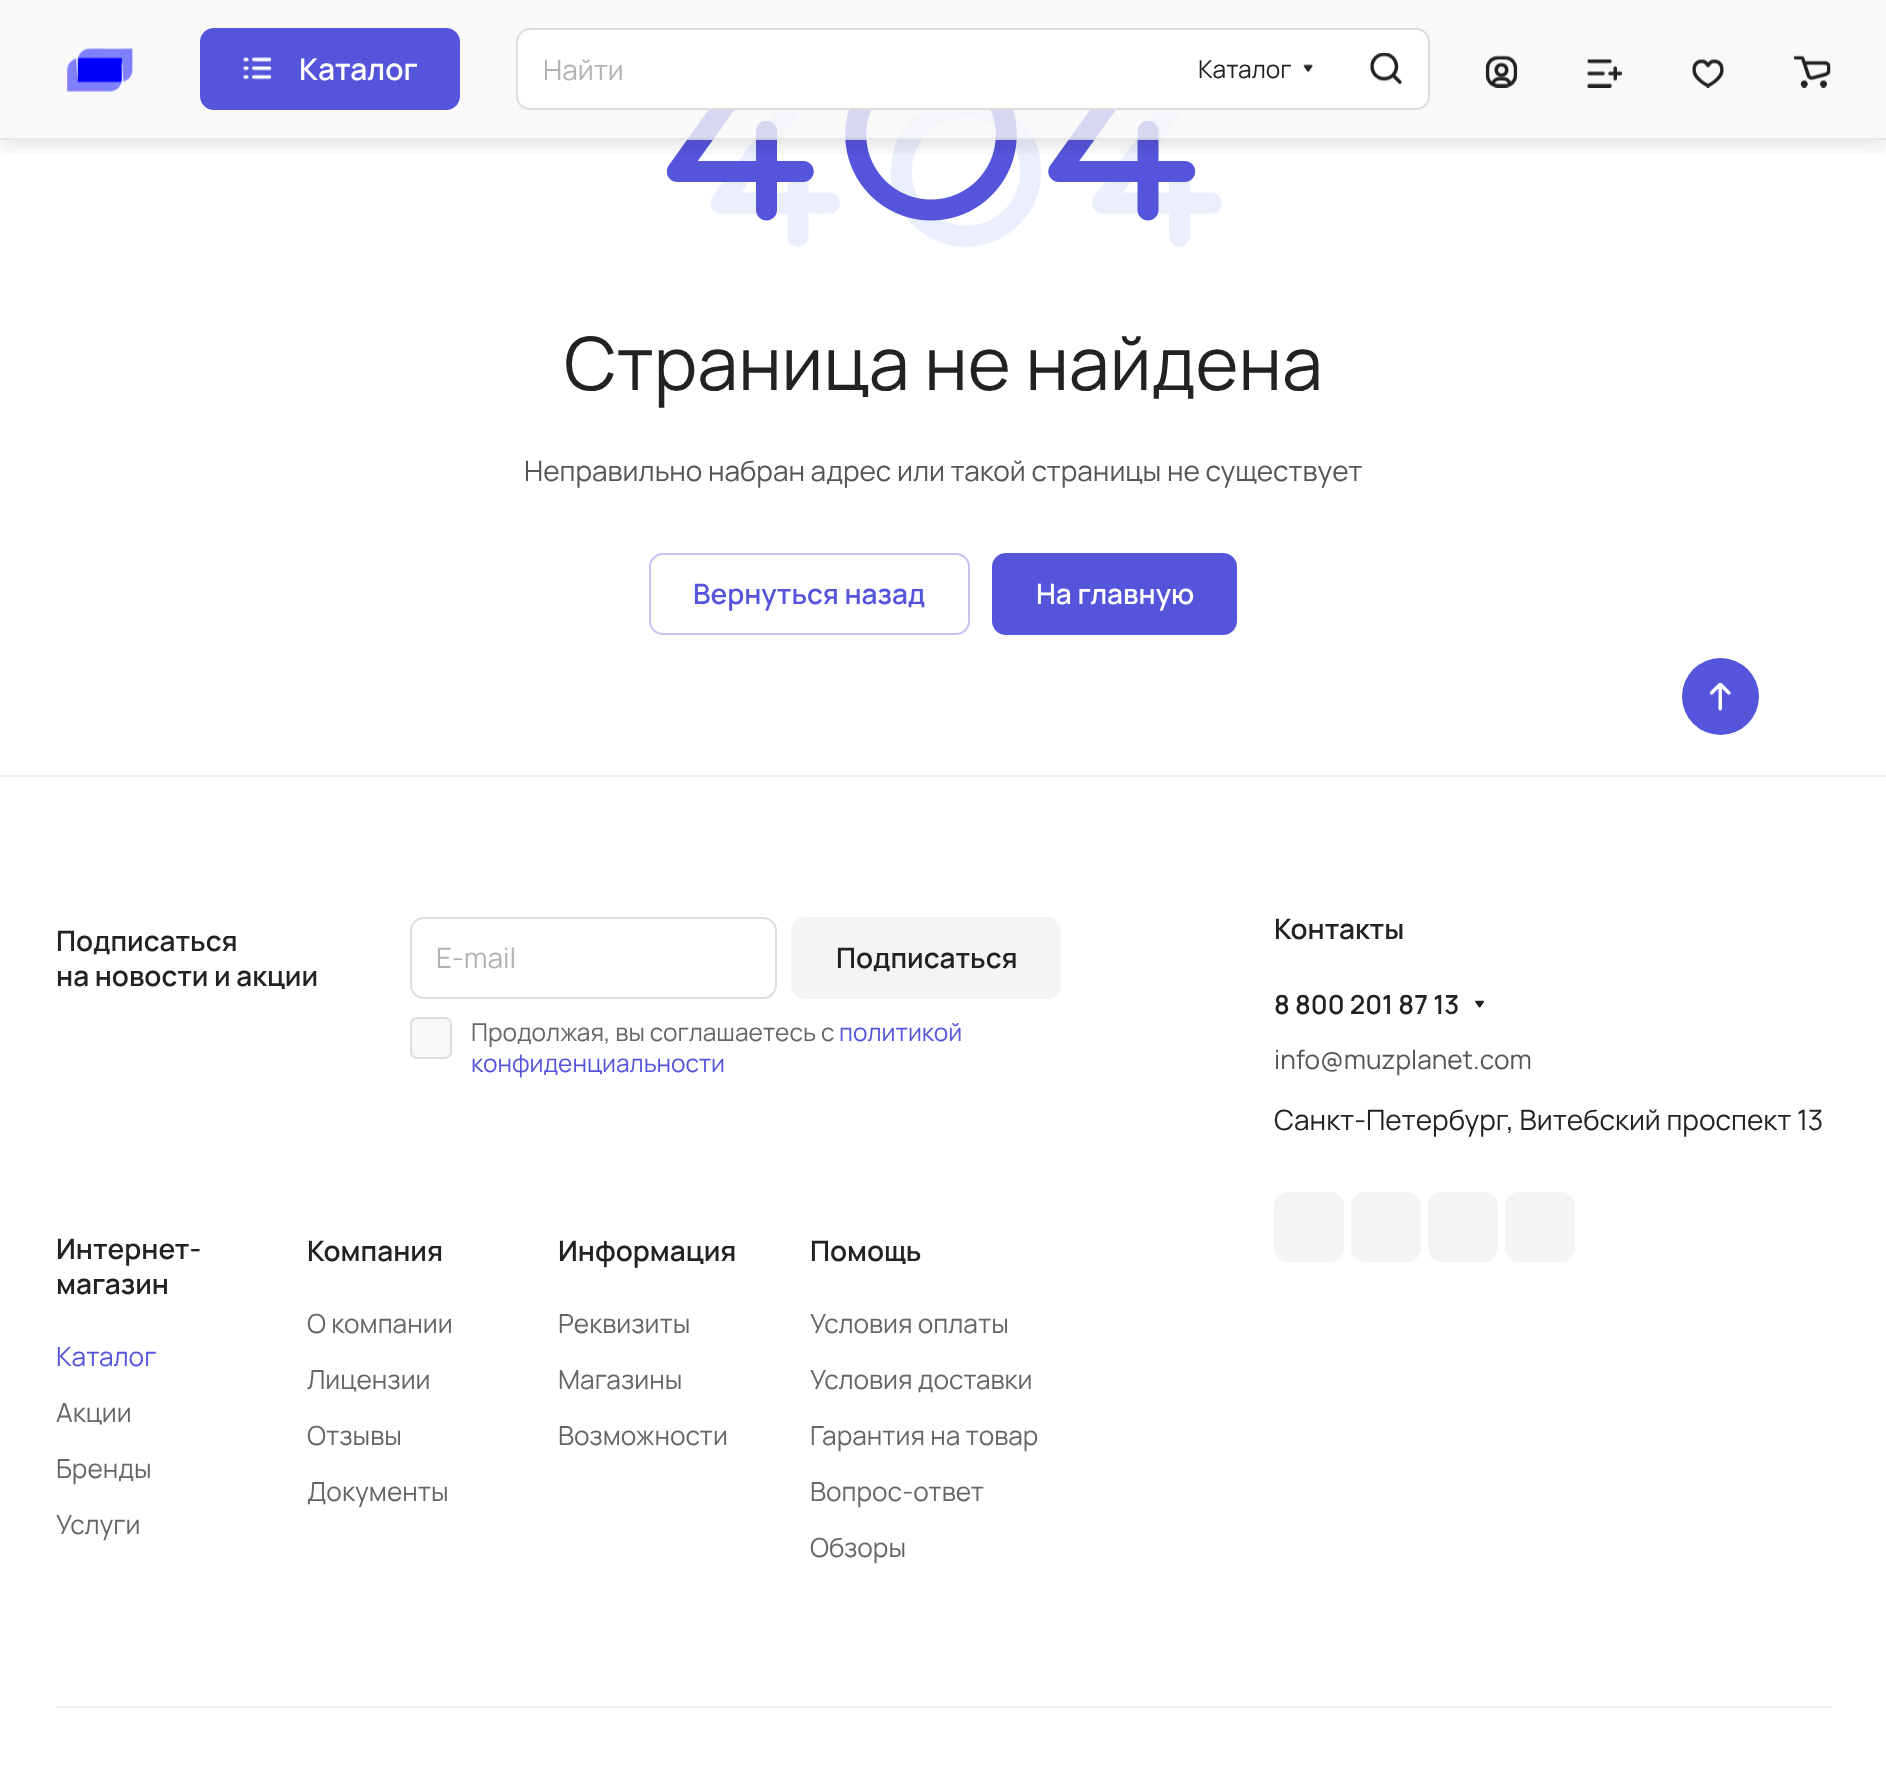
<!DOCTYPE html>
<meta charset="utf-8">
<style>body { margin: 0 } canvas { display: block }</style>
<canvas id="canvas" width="1886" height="1791"></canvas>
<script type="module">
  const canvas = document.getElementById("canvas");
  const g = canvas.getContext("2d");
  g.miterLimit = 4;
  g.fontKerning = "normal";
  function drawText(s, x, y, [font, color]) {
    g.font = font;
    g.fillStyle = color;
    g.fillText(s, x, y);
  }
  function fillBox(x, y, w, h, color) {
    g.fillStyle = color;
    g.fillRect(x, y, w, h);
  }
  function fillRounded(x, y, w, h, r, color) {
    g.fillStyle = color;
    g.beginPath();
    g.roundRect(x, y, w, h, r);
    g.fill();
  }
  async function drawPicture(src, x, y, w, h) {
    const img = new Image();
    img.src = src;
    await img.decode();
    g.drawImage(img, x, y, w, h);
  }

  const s1 = ["200 30px Manrope", "#FFFFFF"];
  const s2 = ["200 28px 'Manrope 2'", "#B2B2B2"];
  const s3 = ["200 24.5px 'Manrope 2'", "#222222"];
  const s4 = ["200 73.5px 'Manrope 2'", "#222222"];
  const s5 = ["200 28px 'Manrope 2'", "#555555"];
  const s6 = ["200 28px Manrope", "#5555DC"];
  const s7 = ["200 28px Manrope", "#FFFFFF"];
  const s8 = ["200 28px Manrope", "#222222"];
  const s9 = ["200 24.5px 'Manrope 2'", "#666666"];
  const s10 = ["200 24.5px 'Manrope 2'", "#5555DC"];
  const s11 = ["200 26.25px 'Manrope 2'", "#5555DC"];
  const s12 = ["200 26.25px 'Manrope 2'", "#666666"];
  const s13 = ["200 26.25px Manrope", "#222222"];
  const s14 = ["200 26.25px 'Manrope 2'", "#555555"];
  const s15 = ["200 28px 'Manrope 2'", "#222222"];

  fillBox(0, 0, 1886, 1791, "#FFFFFF");
  await drawPicture("pic9.png", 667, 110, 555, 137);
  fillBox(0, 0, 1886, 140, "rgba(247, 247, 247, 0.8)");
  g.save();
  g.beginPath();
  g.rect(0, 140, 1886, 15);
  g.clip();
  g.fillStyle = "rgba(0, 0, 0, 0.1)";
  g.filter = "blur(9px)";
  g.beginPath();
  g.rect(0, 7, 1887, 140);
  g.fill();
  g.filter = "none";
  g.restore();
  fillBox(0, 138, 1886, 2, "rgba(34, 34, 34, 0.08)");
  await drawPicture("pic1.png", 67, 48, 66, 44);
  g.fillStyle = "#5555DC";
  g.beginPath();
  g.roundRect(201, 29, 258, 80, 13);
  g.fill();
  g.strokeStyle = "#5555DC";
  g.lineWidth = 2;
  g.stroke();
  await drawPicture("pic2.png", 243, 57, 29, 23);
  drawText("Каталог", 299, 80, s1);
  g.beginPath();
  g.roundRect(517, 29, 912, 80, 13);
  g.fill();
  g.strokeStyle = "#DDDDDD";
  g.stroke();
  drawText("Найти", 543, 80, s2);
  drawText("Каталог", 1198, 78, s3);
  await drawPicture("pic3.png", 1303, 64, 10, 9);
  await drawPicture("pic4.png", 1370, 53, 32, 32);
  await drawPicture("pic5.png", 1485, 55, 33, 33);
  await drawPicture("pic6.png", 1587, 59, 36, 29);
  await drawPicture("pic7.png", 1692, 59, 32, 29);
  await drawPicture("pic8.png", 1793, 55, 38, 33);
  drawText("Страница не найдена", 564, 390, s4);
  drawText("Неправильно набран адрес или такой страницы не существует", 524, 481, s5);
  g.beginPath();
  g.roundRect(650, 554, 319, 80, 13);
  g.strokeStyle = "#C4C4F3";
  g.stroke();
  drawText("Вернуться назад", 693, 604, s6);
  g.beginPath();
  g.roundRect(993, 554, 243, 80, 13);
  g.fill();
  g.strokeStyle = "#5555DC";
  g.stroke();
  drawText("На главную", 1036, 604, s7);
  g.fillStyle = "#5555DC";
  g.beginPath();
  g.arc(1720.5, 696.5, 38.5, 0, Math.PI * 2);
  g.fill();
  await drawPicture("pic10.png", 1710, 683, 21, 28);
  fillBox(0, 775, 1886, 2, "#EDEDED");
  drawText("Подписаться", 56, 951, s8);
  drawText("на новости и акции", 56, 986, s8);
  g.beginPath();
  g.roundRect(411, 918, 365, 80, 13);
  g.strokeStyle = "#DDDDDD";
  g.stroke();
  drawText("E-mail", 436, 968, s2);
  g.fillStyle = "#F4F4F4";
  g.beginPath();
  g.roundRect(792, 918, 268, 80, 13);
  g.fill();
  g.strokeStyle = "#F4F4F4";
  g.stroke();
  drawText("Подписаться", 836, 968, s8);
  g.fillStyle = "#F8F8F8";
  g.beginPath();
  g.roundRect(411, 1018, 40, 40, 6);
  g.fill();
  g.strokeStyle = "#DDDDDD";
  g.stroke();
  drawText("Продолжая, вы соглашаетесь с", 471, 1041, s9);
  drawText("политикой", 839, 1041, s10);
  drawText("конфиденциальности", 471, 1072, s10);
  drawText("Интернет-", 56, 1259, s8);
  drawText("магазин", 56, 1294, s8);
  drawText("Каталог", 56, 1366, s11);
  drawText("Акции", 56, 1422, s12);
  drawText("Бренды", 56, 1478, s12);
  drawText("Услуги", 56, 1534, s12);
  drawText("Компания", 307, 1261, s8);
  drawText("О компании", 307, 1333, s12);
  drawText("Лицензии", 307, 1389, s12);
  drawText("Отзывы", 307, 1445, s12);
  drawText("Документы", 307, 1501, s12);
  drawText("Информация", 558, 1261, s8);
  drawText("Реквизиты", 558, 1333, s12);
  drawText("Магазины", 558, 1389, s12);
  drawText("Возможности", 558, 1445, s12);
  drawText("Помощь", 810, 1261, s8);
  drawText("Условия оплаты", 810, 1333, s12);
  drawText("Условия доставки", 810, 1389, s12);
  drawText("Гарантия на товар", 810, 1445, s12);
  drawText("Вопрос-ответ", 810, 1501, s12);
  drawText("Обзоры", 810, 1557, s12);
  drawText("Контакты", 1274, 939, s8);
  drawText("8 800 201 87 13", 1274, 1014, s13);
  await drawPicture("pic11.png", 1475, 1000, 9, 8);
  drawText("info@muzplanet.com", 1274, 1069, s14);
  drawText("Санкт-Петербург, Витебский проспект 13", 1274, 1130, s15);
  fillRounded(1274, 1192, 70, 70, 14, "#F4F4F4");
  fillRounded(1351, 1192, 70, 70, 14, "#F4F4F4");
  fillRounded(1428, 1192, 70, 70, 14, "#F4F4F4");
  fillRounded(1505, 1192, 70, 70, 14, "#F4F4F4");
  fillBox(56, 1706, 1775, 2, "#EDEDED");
</script>
